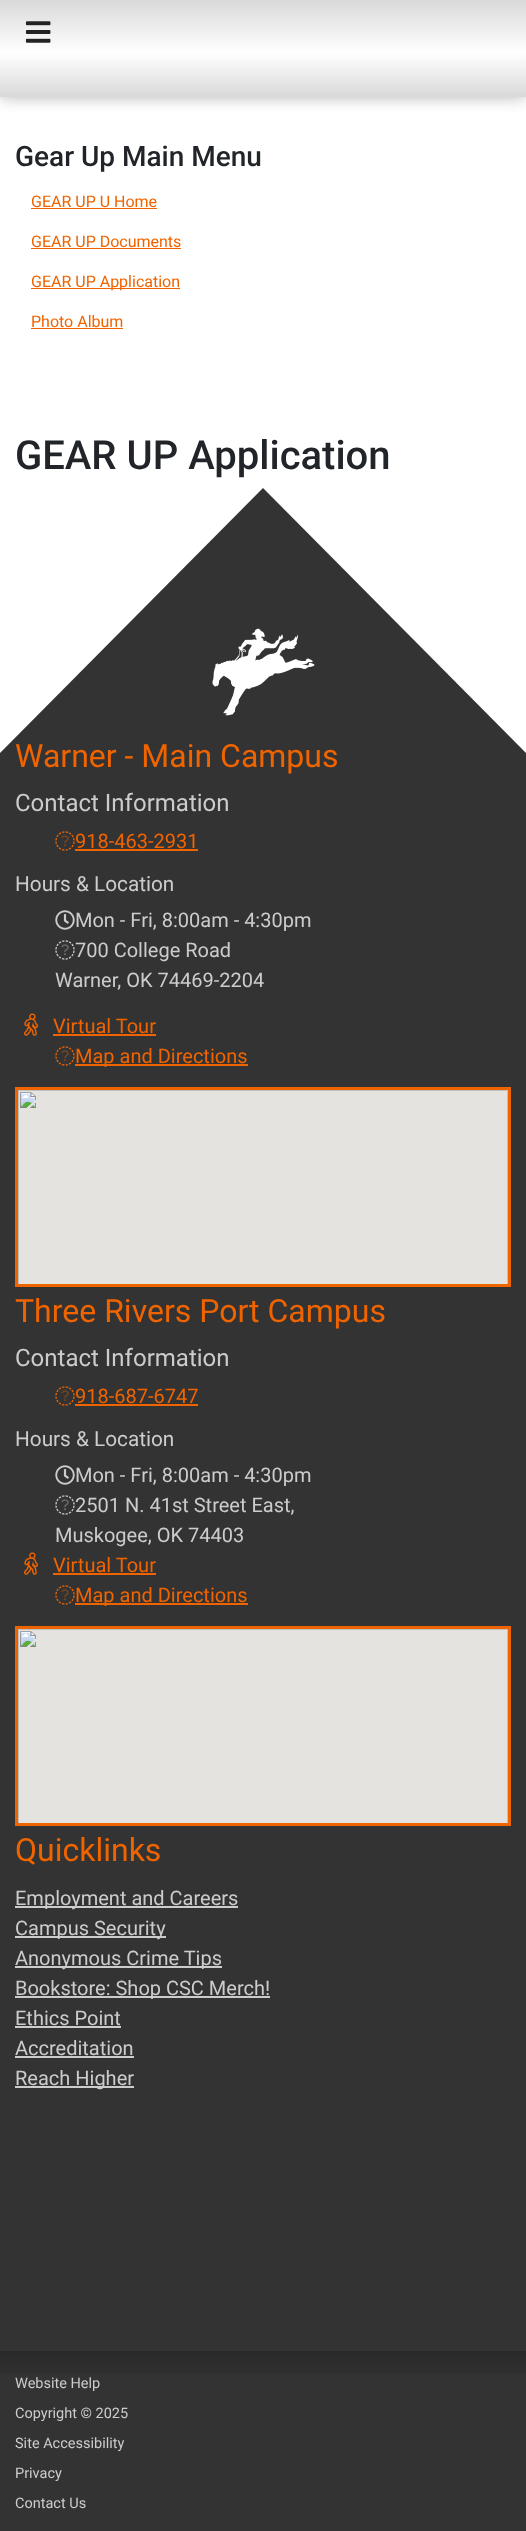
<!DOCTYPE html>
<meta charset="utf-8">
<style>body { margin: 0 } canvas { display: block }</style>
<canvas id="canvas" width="526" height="2531"></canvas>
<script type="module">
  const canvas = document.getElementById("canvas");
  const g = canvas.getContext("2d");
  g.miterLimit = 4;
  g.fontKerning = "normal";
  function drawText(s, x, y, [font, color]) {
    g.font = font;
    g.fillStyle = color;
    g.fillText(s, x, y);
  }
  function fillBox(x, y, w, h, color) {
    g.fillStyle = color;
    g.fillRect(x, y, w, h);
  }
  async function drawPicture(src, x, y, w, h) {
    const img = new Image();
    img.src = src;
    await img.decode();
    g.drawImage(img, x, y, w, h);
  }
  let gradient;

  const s1 = ["500 28px Roboto", "#212529"];
  const s2 = ["16px Roboto", "#F06400"];
  const s3 = ["500 40px Roboto", "#212529"];
  const s4 = ["32px Roboto", "#F06400"];
  const s5 = ["24px Roboto", "#CCCCCC"];
  const s6 = ["20px Roboto", "#F06400"];
  const s7 = ["20.75px Roboto", "#CCCCCC"];
  const s8 = ["20px Roboto", "#CCCCCC"];
  const s9 = ["14.5px Roboto", "#CCCCCC"];

  fillBox(0, 0, 526, 2531, "#FFFFFF");
  g.fillStyle = "rgba(4, 5, 4, 0.3)";
  g.filter = "blur(8px)";
  g.beginPath();
  g.rect(0, 0, 526, 97);
  g.fill();
  g.filter = "none";
  gradient = g.createLinearGradient(263, 97, 263, 0);
  gradient.addColorStop(0, "#D9D9D9");
  gradient.addColorStop(0.46, "#FFFFFF");
  gradient.addColorStop(1, "#D9D9D9");
  g.fillStyle = gradient;
  g.fillRect(0, 0, 526, 97);
  await drawPicture("pic1.png", 25, 21, 26, 22);
  drawText("Gear Up Main Menu", 15, 166, s1);
  drawText("GEAR UP U Home", 31, 207, s2);
  fillBox(31, 208, 126, 1, "#F06400");
  drawText("GEAR UP Documents", 31, 247, s2);
  fillBox(31, 248, 150, 1, "#F06400");
  fillBox(31, 288, 149, 1, "#F06400");
  drawText("GEAR UP Application", 31, 287, s2);
  drawText("Photo Album", 31, 327, s2);
  fillBox(31, 328, 92, 1, "#F06400");
  drawText("GEAR UP Application", 15, 469, s3);
  g.fillStyle = "#333333";
  g.beginPath();
  g.moveTo(0, 753);
  g.lineTo(0, 2531);
  g.lineTo(526, 2531);
  g.lineTo(526, 753);
  g.lineTo(263, 488);
  g.closePath();
  g.fill();
  await drawPicture("pic2.png", 212, 628, 103, 88);
  drawText("Warner - Main Campus", 15, 767, s4);
  drawText("Contact Information", 15, 811, s5);
  await drawPicture("pic3.png", 55, 831, 20, 20);
  drawText("918-463-2931", 75, 848, s6);
  fillBox(75, 849, 123, 2, "#F06400");
  drawText("Hours & Location", 15, 891, s7);
  await drawPicture("pic4.png", 55, 910, 20, 20);
  drawText("Mon - Fri, 8:00am - 4:30pm", 75, 927, s8);
  await drawPicture("pic5.png", 55, 940, 20, 20);
  drawText("700 College Road", 75, 957, s8);
  drawText("Warner, OK 74469-2204", 55, 987, s8);
  await drawPicture("pic6.png", 24, 1013, 14, 23);
  drawText("Virtual Tour", 53, 1033, s6);
  fillBox(53, 1034, 103, 2, "#F06400");
  await drawPicture("pic3.png", 55, 1046, 20, 20);
  fillBox(75, 1064, 173, 2, "#F06400");
  drawText("Map and Directions", 75, 1063, s6);
  g.strokeStyle = "#F06400";
  g.lineWidth = 3;
  g.strokeRect(16.5, 1088.5, 493, 197);
  await drawPicture("pic7.png", 18, 1090, 490, 194);
  drawText("Three Rivers Port Campus", 15, 1322, s4);
  drawText("Contact Information", 15, 1366, s5);
  await drawPicture("pic3.png", 55, 1386, 20, 20);
  drawText("918-687-6747", 75, 1403, s6);
  fillBox(75, 1404, 123, 2, "#F06400");
  drawText("Hours & Location", 15, 1446, s7);
  await drawPicture("pic4.png", 55, 1465, 20, 20);
  drawText("Mon - Fri, 8:00am - 4:30pm", 75, 1482, s8);
  await drawPicture("pic5.png", 55, 1495, 20, 20);
  drawText("2501 N. 41st Street East,", 75, 1512, s8);
  drawText("Muskogee, OK 74403", 55, 1542, s8);
  await drawPicture("pic6.png", 24, 1552, 14, 23);
  drawText("Virtual Tour", 53, 1572, s6);
  fillBox(53, 1573, 103, 2, "#F06400");
  await drawPicture("pic3.png", 55, 1585, 20, 20);
  fillBox(75, 1603, 173, 2, "#F06400");
  drawText("Map and Directions", 75, 1602, s6);
  g.strokeRect(16.5, 1627.5, 493, 197);
  await drawPicture("pic7.png", 18, 1629, 490, 194);
  drawText("Quicklinks", 15, 1861, s4);
  fillBox(15, 1906, 223, 2, "#CCCCCC");
  drawText("Employment and Careers", 15, 1905, s8);
  fillBox(15, 1936, 151, 2, "#CCCCCC");
  drawText("Campus Security", 15, 1935, s8);
  fillBox(15, 1966, 207, 2, "#CCCCCC");
  drawText("Anonymous Crime Tips", 15, 1965, s8);
  fillBox(15, 1996, 255, 2, "#CCCCCC");
  drawText("Bookstore: Shop CSC Merch!", 15, 1995, s8);
  drawText("Ethics Point", 15, 2025, s8);
  fillBox(15, 2026, 106, 2, "#CCCCCC");
  drawText("Accreditation", 15, 2055, s8);
  fillBox(15, 2056, 119, 2, "#CCCCCC");
  fillBox(15, 2086, 119, 2, "#CCCCCC");
  drawText("Reach Higher", 15, 2085, s8);
  gradient = g.createLinearGradient(263, 2351, 263, 2531);
  gradient.addColorStop(0, "#292929");
  gradient.addColorStop(0.18, "#333333");
  gradient.addColorStop(1, "#333333");
  g.fillStyle = gradient;
  g.fillRect(0, 2351, 526, 24);
  drawText("Website Help", 15, 2388, s9);
  drawText("Copyright © 2025", 15, 2418, s9);
  drawText("Site Accessibility", 15, 2448, s9);
  drawText("Privacy", 15, 2478, s9);
  drawText("Contact Us", 15, 2508, s9);
</script>
